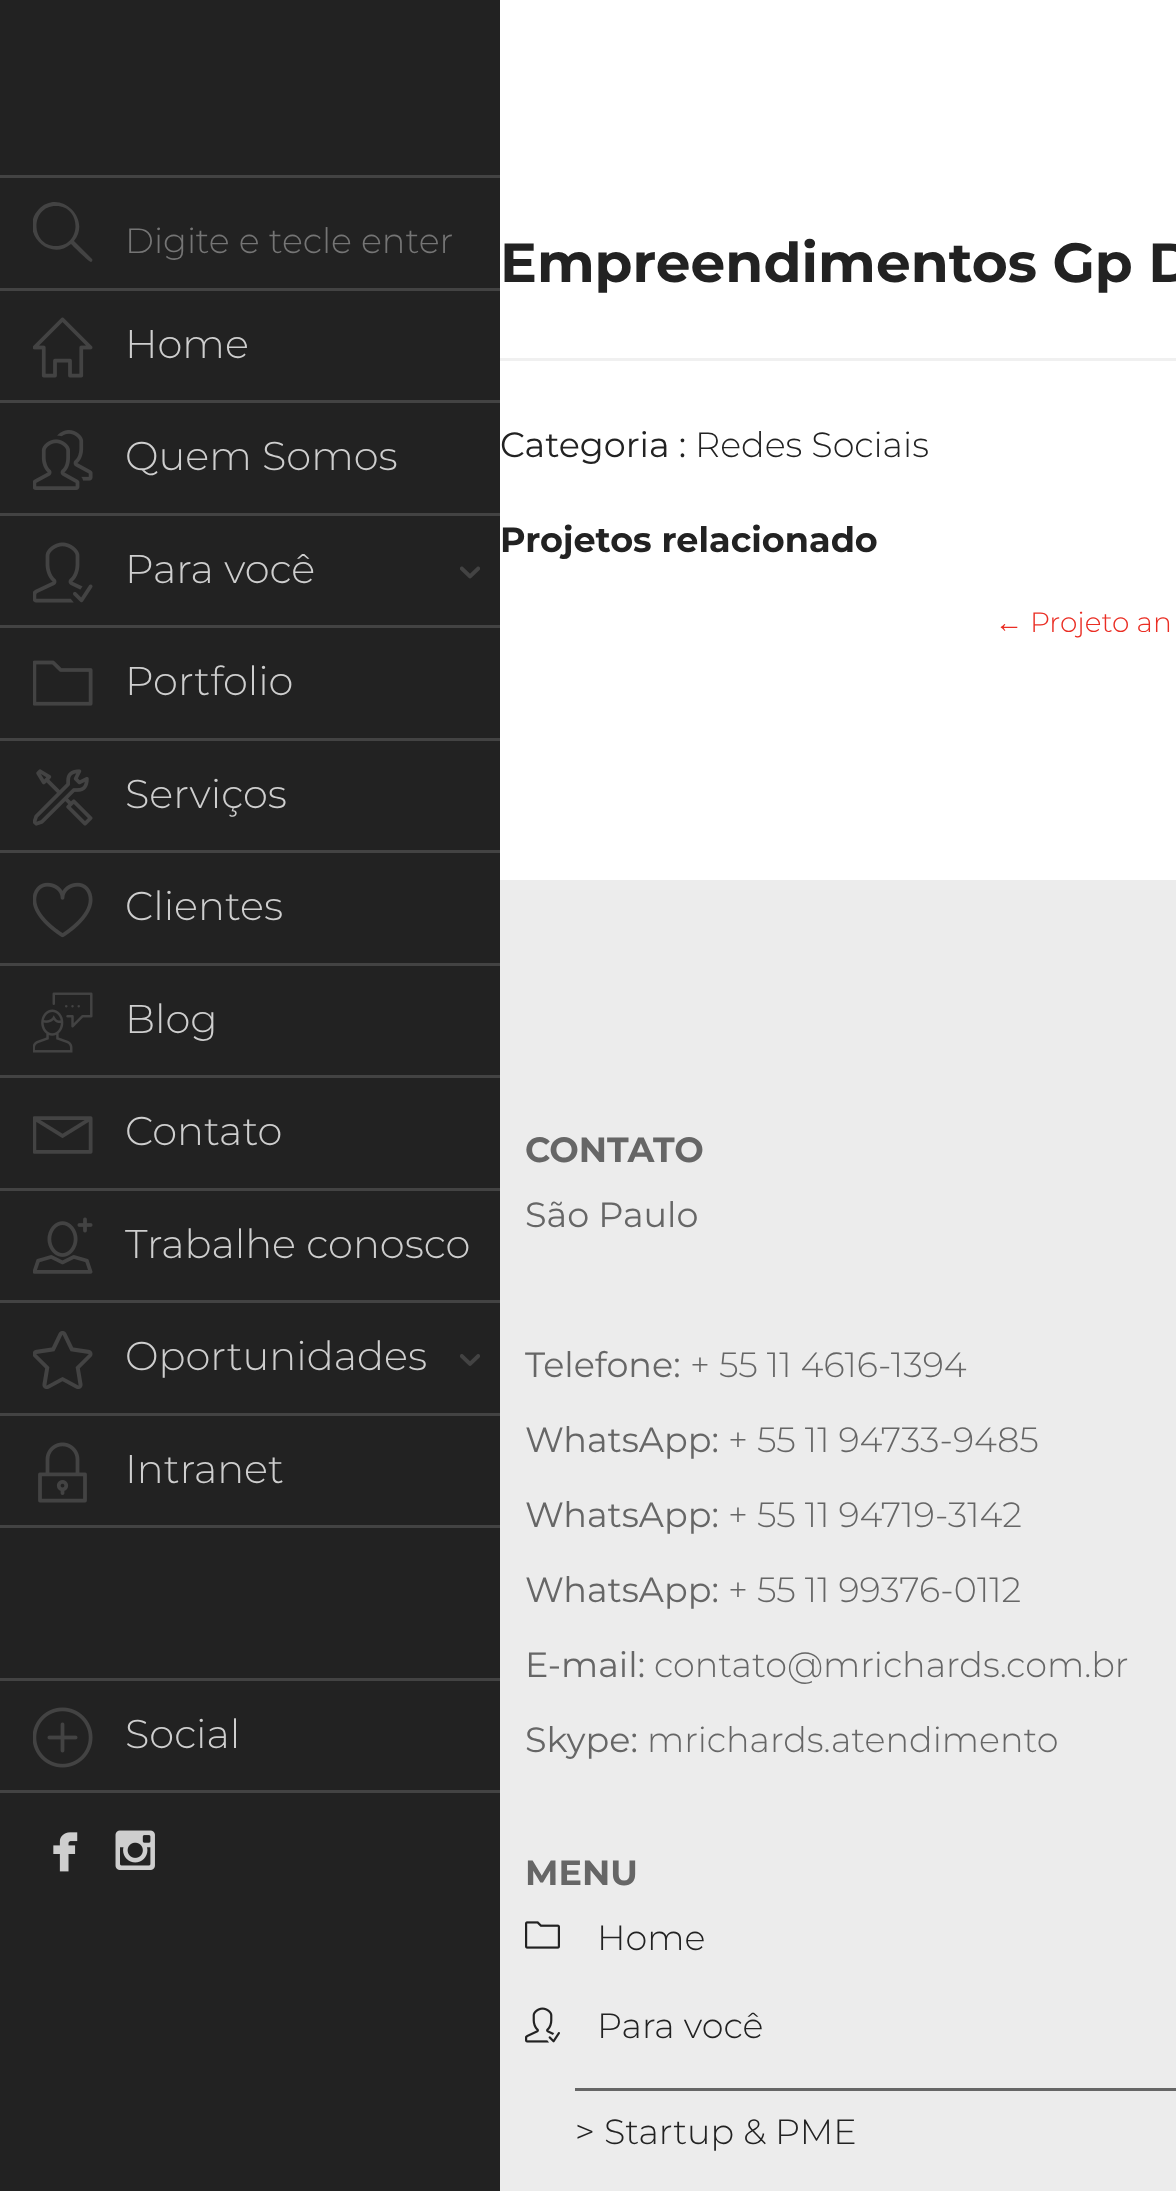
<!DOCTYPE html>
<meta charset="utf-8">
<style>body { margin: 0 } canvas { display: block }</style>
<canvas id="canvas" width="1176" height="2191"></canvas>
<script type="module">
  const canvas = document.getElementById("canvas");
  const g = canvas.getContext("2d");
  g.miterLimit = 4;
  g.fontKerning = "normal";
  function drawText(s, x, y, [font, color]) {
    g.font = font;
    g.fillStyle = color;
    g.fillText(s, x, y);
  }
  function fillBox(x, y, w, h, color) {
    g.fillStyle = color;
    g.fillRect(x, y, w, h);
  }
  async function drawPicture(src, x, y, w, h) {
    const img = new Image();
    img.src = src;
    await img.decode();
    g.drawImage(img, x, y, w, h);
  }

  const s1 = ["300 35px Montserrat", "#757575"];
  const s2 = ["300 40px Montserrat", "#CECECE"];
  const s3 = ["bold 55px Montserrat", "#222222"];
  const s4 = ["35px Montserrat", "#222222"];
  const s5 = ["300 35px Montserrat", "#222222"];
  const s6 = ["bold 35px Montserrat", "#222222"];
  const s7 = ["28px Liberation Serif", "#EA2D23"];
  const s8 = ["300 28px Montserrat", "#EA2D23"];
  const s9 = ["bold 35px Montserrat", "#666666"];
  const s10 = ["35px Montserrat", "#666666"];
  const s11 = ["300 35px Montserrat", "#666666"];

  fillBox(0, 0, 1176, 2191, "#222222");
  fillBox(0, 175, 500, 3, "#434343");
  g.save();
  g.beginPath();
  g.rect(33, 178, 100, 100);
  g.clip();
  g.beginPath();
  g.moveTo(92, 259);
  g.bezierCurveTo(93, 260, 92, 262, 91, 262);
  g.bezierCurveTo(89, 262, 73, 246, 71, 244);
  g.bezierCurveTo(49, 263, 18, 231, 39, 209);
  g.bezierCurveTo(60, 188, 92, 219, 74, 241);
  g.closePath();
  g.moveTo(56, 246);
  g.bezierCurveTo(82, 246, 82, 206, 56, 206);
  g.bezierCurveTo(30, 206, 30, 246, 56, 246);
  g.closePath();
  g.fill();
  g.restore();
  drawText("Digite e tecle enter", 125, 253, s1);
  fillBox(0, 288, 500, 3, "#434343");
  await drawPicture("pic1.png", 33, 317, 60, 61);
  drawText("Home", 125, 358, s2);
  fillBox(0, 400, 500, 3, "#434343");
  await drawPicture("pic2.png", 33, 430, 60, 60);
  drawText("Quem Somos", 125, 470, s2);
  fillBox(0, 513, 500, 3, "#434343");
  await drawPicture("pic3.png", 33, 542, 60, 61);
  drawText("Para você", 125, 583, s2);
  await drawPicture("pic4.png", 460, 566, 20, 13);
  fillBox(0, 625, 500, 3, "#434343");
  await drawPicture("pic5.png", 33, 660, 60, 46);
  drawText("Portfolio", 125, 695, s2);
  fillBox(0, 738, 500, 3, "#434343");
  await drawPicture("pic6.png", 33, 769, 60, 57);
  drawText("Serviços", 125, 808, s2);
  fillBox(0, 850, 500, 3, "#434343");
  await drawPicture("pic7.png", 33, 882, 60, 56);
  drawText("Clientes", 125, 920, s2);
  fillBox(0, 963, 500, 3, "#434343");
  await drawPicture("pic8.png", 33, 992, 60, 61);
  drawText("Blog", 125, 1033, s2);
  fillBox(0, 1075, 500, 3, "#434343");
  await drawPicture("pic9.png", 33, 1116, 60, 38);
  drawText("Contato", 125, 1145, s2);
  fillBox(0, 1188, 500, 3, "#434343");
  await drawPicture("pic10.png", 33, 1217, 60, 57);
  drawText("Trabalhe conosco", 125, 1258, s2);
  fillBox(0, 1300, 500, 3, "#434343");
  await drawPicture("pic11.png", 33, 1331, 60, 58);
  drawText("Oportunidades", 125, 1370, s2);
  await drawPicture("pic12.png", 460, 1354, 20, 12);
  fillBox(0, 1413, 500, 3, "#434343");
  fillBox(0, 1525, 500, 3, "#434343");
  await drawPicture("pic13.png", 38, 1442, 49, 61);
  drawText("Intranet", 125, 1483, s2);
  fillBox(0, 1678, 500, 3, "#434343");
  fillBox(0, 1790, 500, 3, "#434343");
  await drawPicture("pic14.png", 33, 1707, 60, 61);
  drawText("Social", 125, 1748, s2);
  await drawPicture("pic15.png", 53, 1832, 25, 40);
  await drawPicture("pic16.png", 115, 1830, 40, 40);
  fillBox(500, 0, 676, 880, "#FFFFFF");
  drawText("Empreendimentos Gp D", 500, 282, s3);
  fillBox(500, 358, 676, 3, "#F0F0F0");
  drawText("Categoria :", 500, 457, s4);
  drawText("Redes Sociais", 695, 457, s5);
  drawText("Projetos relacionado", 500, 552, s6);
  drawText("←", 995, 632, s7);
  drawText("Projeto an", 1030, 632, s8);
  fillBox(500, 880, 676, 1311, "#ECECEC");
  drawText("CONTATO", 525, 1162, s9);
  drawText("São Paulo", 525, 1227, s10);
  drawText("Telefone:", 525, 1377, s10);
  drawText("+ 55 11 4616-1394", 690, 1377, s11);
  drawText("WhatsApp:", 525, 1452, s10);
  drawText("+ 55 11 94733-9485", 728, 1452, s11);
  drawText("WhatsApp:", 525, 1527, s10);
  drawText("+ 55 11 94719-3142", 728, 1527, s11);
  drawText("WhatsApp:", 525, 1602, s10);
  drawText("+ 55 11 99376-0112", 728, 1602, s11);
  drawText("E-mail:", 525, 1677, s10);
  drawText("contato@mrichards.com.br", 654, 1677, s11);
  drawText("Skype:", 525, 1752, s10);
  drawText("mrichards.atendimento", 647, 1752, s11);
  drawText("MENU", 525, 1885, s9);
  await drawPicture("pic17.png", 525, 1921, 35, 28);
  drawText("Home", 597, 1950, s5);
  await drawPicture("pic18.png", 525, 2007, 35, 36);
  drawText("Para você", 597, 2038, s5);
  fillBox(575, 2088, 601, 3, "#666666");
  drawText("> Startup & PME", 575, 2144, s5);
</script>
